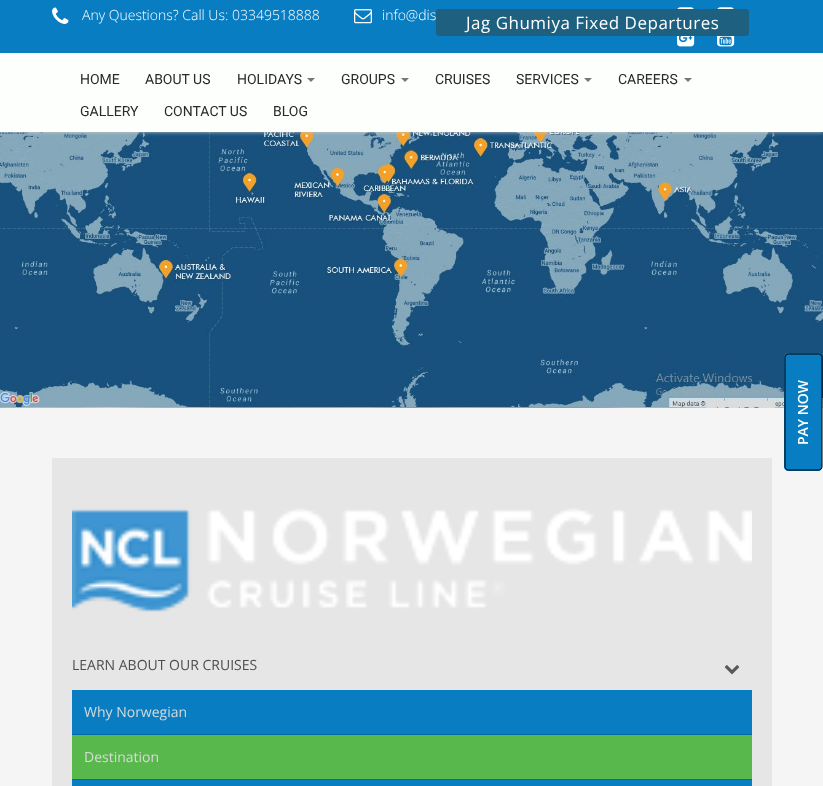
<!DOCTYPE html>
<meta charset="utf-8">
<style>body { margin: 0 } canvas { display: block }</style>
<canvas id="canvas" width="823" height="786"></canvas>
<script type="module">
  const canvas = document.getElementById("canvas");
  const g = canvas.getContext("2d");
  g.miterLimit = 4;
  g.fontKerning = "normal";
  function drawText(s, x, y, [font, color]) {
    g.font = font;
    g.fillStyle = color;
    g.fillText(s, x, y);
  }
  function fillBox(x, y, w, h, color) {
    g.fillStyle = color;
    g.fillRect(x, y, w, h);
  }
  function fillRounded(x, y, w, h, r, color) {
    g.fillStyle = color;
    g.beginPath();
    g.roundRect(x, y, w, h, r);
    g.fill();
  }
  async function drawPicture(src, x, y, w, h) {
    const img = new Image();
    img.src = src;
    await img.decode();
    g.drawImage(img, x, y, w, h);
  }

  const s1 = ["300 14px Open Sans", "#FFFFFF"];
  const s2 = ["14px Roboto", "#282A2B"];
  const s3 = ["17px Open Sans", "#FFFFFF"];
  const s4 = ["14px Open Sans", "#4D4D4D"];
  const s5 = ["14px Open Sans", "#D9D9D9"];

  fillBox(0, 0, 823, 786, "#FFFFFF");
  await drawPicture("pic6.png", 0, 132, 823, 276);
  g.fillStyle = "#CCCCCC";
  g.filter = "blur(2px)";
  g.beginPath();
  g.rect(0, 0, 823, 132);
  g.fill();
  g.filter = "none";
  fillBox(0, 0, 823, 53, "#087DC2");
  await drawPicture("pic1.png", 52, 7, 17, 17);
  drawText("Any Questions? Call Us: 03349518888", 82, 20, s1);
  await drawPicture("pic2.png", 354, 9, 18, 15);
  drawText("info@dis", 382, 20, s1);
  await drawPicture("pic3.png", 677, 7, 17, 2);
  await drawPicture("pic3.png", 717, 7, 17, 2);
  await drawPicture("pic4.png", 677, 36, 18, 11);
  await drawPicture("pic5.png", 717, 36, 18, 11);
  fillBox(0, 53, 823, 79, "#FDFFFC");
  drawText("HOME", 80, 84, s2);
  drawText("ABOUT US", 145, 84, s2);
  drawText("HOLIDAYS", 237, 84, s2);
  g.fillStyle = "#777777";
  g.beginPath();
  g.moveTo(307, 78);
  g.lineTo(315, 78);
  g.lineTo(311, 82);
  g.closePath();
  g.fill();
  drawText("GROUPS", 341, 84, s2);
  g.fillStyle = "#777777";
  g.beginPath();
  g.moveTo(401, 78);
  g.lineTo(409, 78);
  g.lineTo(405, 82);
  g.closePath();
  g.fill();
  drawText("CRUISES", 435, 84, s2);
  drawText("SERVICES", 516, 84, s2);
  g.fillStyle = "#777777";
  g.beginPath();
  g.moveTo(584, 78);
  g.lineTo(592, 78);
  g.lineTo(588, 82);
  g.closePath();
  g.fill();
  drawText("CAREERS", 618, 84, s2);
  g.fillStyle = "#777777";
  g.beginPath();
  g.moveTo(684, 78);
  g.lineTo(692, 78);
  g.lineTo(688, 82);
  g.closePath();
  g.fill();
  drawText("GALLERY", 80, 116, s2);
  drawText("CONTACT US", 164, 116, s2);
  drawText("BLOG", 273, 116, s2);
  fillRounded(436, 9, 313, 27, 3, "#1D6080");
  g.letterSpacing = "0.5px";
  drawText("Jag Ghumiya Fixed Departures", 466, 29, s3);
  fillBox(0, 408, 823, 378, "#F5F5F5");
  g.fillStyle = "#087DC2";
  g.beginPath();
  g.moveTo(784, 467);
  g.lineTo(784, 357);
  g.bezierCurveTo(784, 355, 786, 353, 788, 353);
  g.lineTo(818, 353);
  g.bezierCurveTo(821, 353, 822, 355, 822, 357);
  g.lineTo(822, 467);
  g.bezierCurveTo(822, 469, 821, 471, 818, 471);
  g.lineTo(788, 471);
  g.bezierCurveTo(786, 471, 784, 469, 784, 467);
  g.closePath();
  g.fill();
  g.beginPath();
  g.moveTo(785, 466.5);
  g.lineTo(785, 357.5);
  g.bezierCurveTo(785, 355.5, 786.5, 354, 788.5, 354);
  g.lineTo(818.5, 354);
  g.bezierCurveTo(820.5, 354, 822, 355.5, 822, 357.5);
  g.lineTo(822, 466.5);
  g.bezierCurveTo(822, 468.5, 820.5, 470, 818.5, 470);
  g.lineTo(788.5, 470);
  g.bezierCurveTo(786.5, 470, 785, 468.5, 785, 466.5);
  g.closePath();
  g.strokeStyle = "#000000";
  g.stroke();
  g.letterSpacing = "0px";
  g.font = "600 14px Open Sans";
  g.fillStyle = "#FFFFFF";
  g.save();
  g.translate(808, 445);
  g.rotate(-90 * Math.PI / 180);
  g.fillText("PAY NOW", 0, 0);
  g.restore();
  fillBox(52, 458, 720, 328, "#E6E6E6");
  await drawPicture("pic7.png", 72, 508, 680, 104);
  drawText("LEARN ABOUT OUR CRUISES", 72, 670, s4);
  await drawPicture("pic8.png", 724, 665, 16, 10);
  fillBox(72, 690, 680, 96, "#087DC2");
  fillBox(72, 734, 680, 1, "#016AA8");
  drawText("Why Norwegian", 84, 717, s5);
  fillBox(72, 779, 680, 1, "#016AA8");
  fillBox(72, 735, 680, 44, "#58B84B");
  drawText("Destination", 84, 762, s5);
</script>
